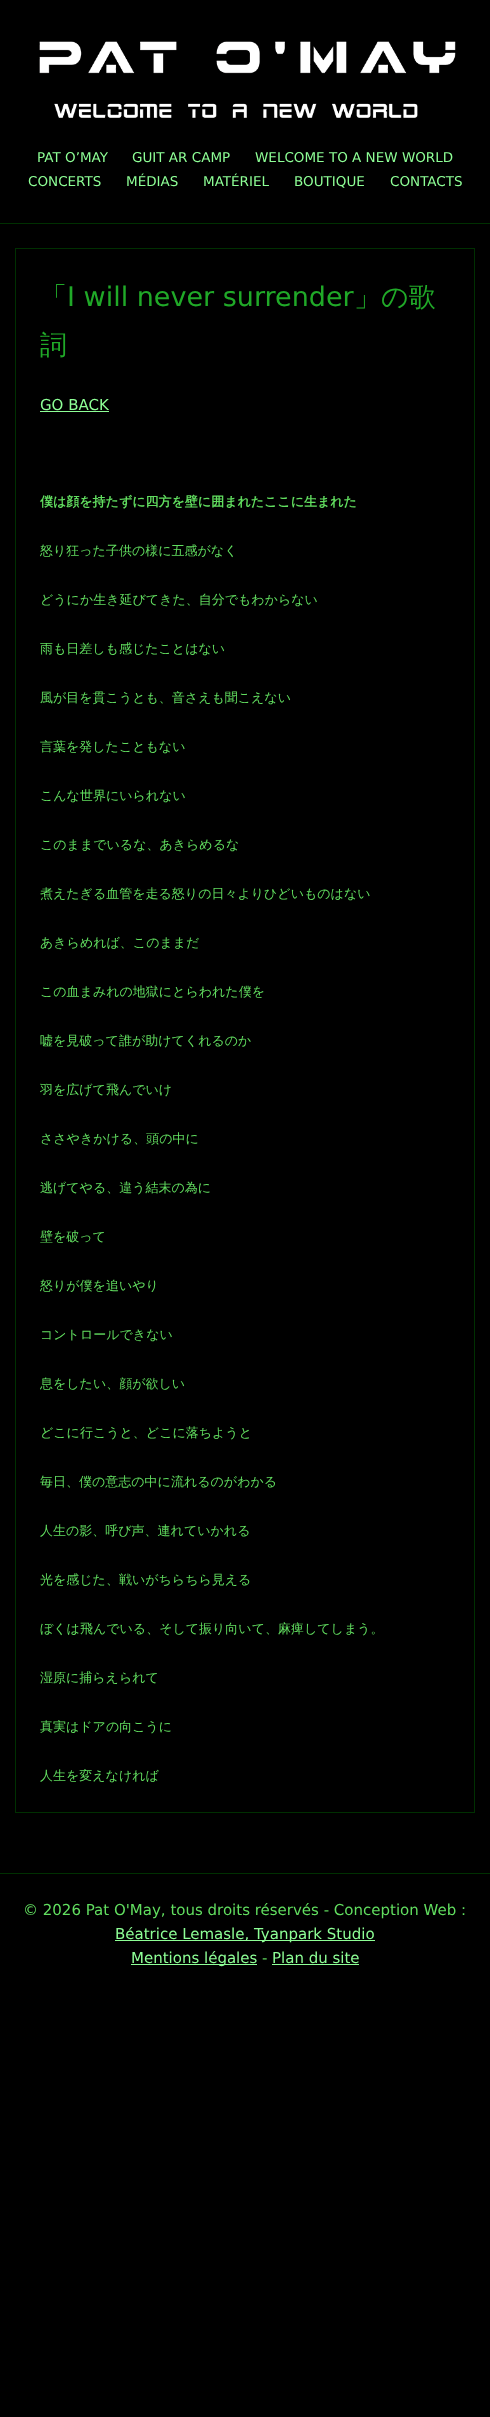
<!DOCTYPE html>
<meta charset="utf-8">
<style>body { margin: 0 } canvas { display: block }</style>
<canvas id="canvas" width="490" height="2417"></canvas>
<script type="module">
  const canvas = document.getElementById("canvas");
  const g = canvas.getContext("2d");
  g.miterLimit = 4;
  g.fontKerning = "normal";
  function drawText(s, x, y, [font, color]) {
    g.font = font;
    g.fillStyle = color;
    g.fillText(s, x, y);
  }
  function fillBox(x, y, w, h, color) {
    g.fillStyle = color;
    g.fillRect(x, y, w, h);
  }
  async function drawPicture(src, x, y, w, h) {
    const img = new Image();
    img.src = src;
    await img.decode();
    g.drawImage(img, x, y, w, h);
  }

  const s1 = ["13.5px DejaVu Sans", "#8EFF96"];
  const s2 = ["500 27px WenQuanYi Zen Hei", "#20A928"];
  const s3 = ["27px DejaVu Sans", "#20A928"];
  const s4 = ["15px DejaVu Sans", "#8EFF96"];
  const s5 = ["bold 13px WenQuanYi Zen Hei", "#61DD5F"];
  const s6 = ["500 13px WenQuanYi Zen Hei", "#61DD5F"];
  const s7 = ["15px DejaVu Sans", "#61DD5F"];

  fillBox(0, 0, 490, 2417, "#000000");
  await drawPicture("pic1.png", 39, 41, 417, 77);
  drawText("PAT O’MAY", 37, 162, s1);
  drawText("GUIT AR CAMP", 132, 162, s1);
  drawText("WELCOME TO A NEW WORLD", 255, 162, s1);
  drawText("CONCERTS", 28, 186, s1);
  drawText("MÉDIAS", 126, 186, s1);
  drawText("MATÉRIEL", 203, 186, s1);
  drawText("BOUTIQUE", 294, 186, s1);
  drawText("CONTACTS", 390, 186, s1);
  fillBox(0, 223, 490, 1, "#003001");
  g.strokeStyle = "#003001";
  g.strokeRect(15.5, 248.5, 459, 1564);
  drawText("「", 40, 306, s2);
  drawText("I will never surrender", 67, 306, s3);
  drawText("」の歌", 354, 306, s2);
  drawText("詞", 40, 354, s2);
  drawText("GO BACK", 40, 410, s4);
  fillBox(40, 411, 69, 1, "#8EFF96");
  drawText("僕は顔を持たずに四方を壁に囲まれたここに生まれた", 40, 506, s5);
  drawText("怒り狂った子供の様に五感がなく", 40, 555, s6);
  drawText("どうにか生き延びてきた、自分でもわからない", 40, 604, s6);
  drawText("雨も日差しも感じたことはない", 40, 653, s6);
  drawText("風が目を貫こうとも、音さえも聞こえない", 40, 702, s6);
  drawText("言葉を発したこともない", 40, 751, s6);
  drawText("こんな世界にいられない", 40, 800, s6);
  drawText("このままでいるな、あきらめるな", 40, 849, s6);
  drawText("煮えたぎる血管を走る怒りの日々よりひどいものはない", 40, 898, s6);
  drawText("あきらめれば、このままだ", 40, 947, s6);
  drawText("この血まみれの地獄にとらわれた僕を", 40, 996, s6);
  drawText("嘘を見破って誰が助けてくれるのか", 40, 1045, s6);
  drawText("羽を広げて飛んでいけ", 40, 1094, s6);
  drawText("ささやきかける、頭の中に", 40, 1143, s6);
  drawText("逃げてやる、違う結末の為に", 40, 1192, s6);
  drawText("壁を破って", 40, 1241, s6);
  drawText("怒りが僕を追いやり", 40, 1290, s6);
  drawText("コントロールできない", 40, 1339, s6);
  drawText("息をしたい、顔が欲しい", 40, 1388, s6);
  drawText("どこに行こうと、どこに落ちようと", 40, 1437, s6);
  drawText("毎日、僕の意志の中に流れるのがわかる", 40, 1486, s6);
  drawText("人生の影、呼び声、連れていかれる", 40, 1535, s6);
  drawText("光を感じた、戦いがちらちら見える", 40, 1584, s6);
  drawText("ぼくは飛んでいる、そして振り向いて、麻痺してしまう。", 40, 1633, s6);
  drawText("湿原に捕らえられて", 40, 1682, s6);
  drawText("真実はドアの向こうに", 40, 1731, s6);
  drawText("人生を変えなければ", 40, 1780, s6);
  fillBox(0, 1873, 490, 1, "#003001");
  drawText("© 2026 Pat O'May, tous droits réservés - Conception Web :", 23, 1915, s7);
  fillBox(115, 1940, 260, 1, "#8EFF96");
  drawText("Béatrice Lemasle, Tyanpark Studio", 115, 1939, s4);
  fillBox(131, 1964, 126, 1, "#8EFF96");
  drawText("Mentions légales", 131, 1963, s4);
  drawText("-", 262, 1963, s7);
  drawText("Plan du site", 272, 1963, s4);
  fillBox(272, 1964, 87, 1, "#8EFF96");
</script>
